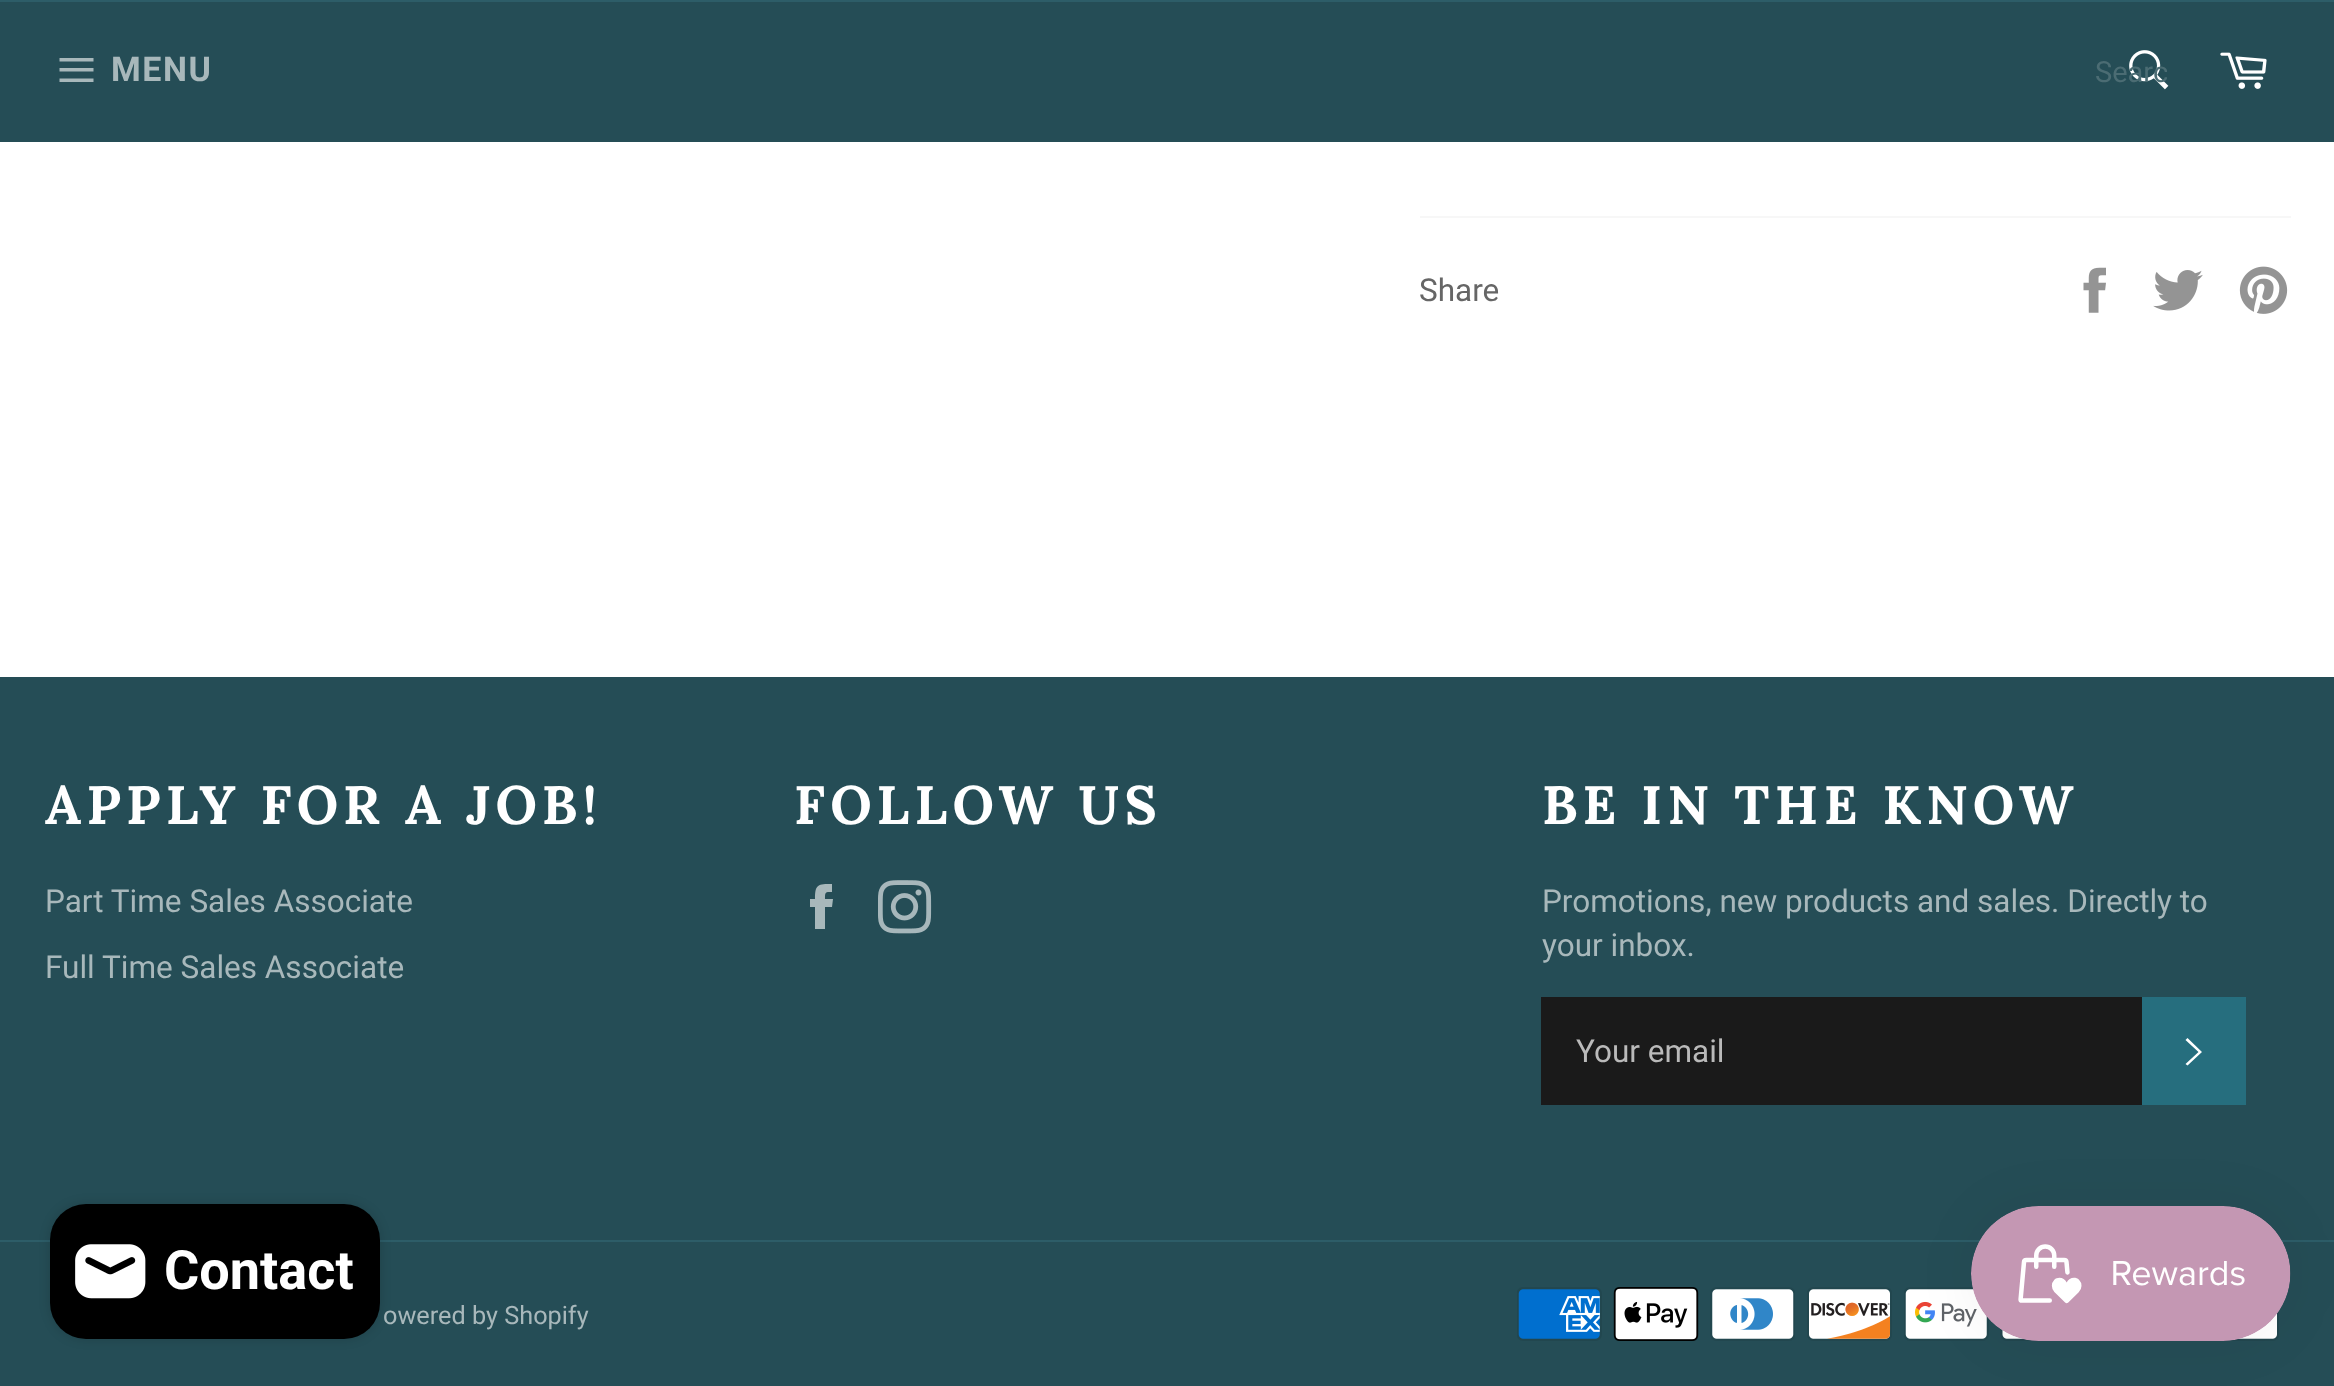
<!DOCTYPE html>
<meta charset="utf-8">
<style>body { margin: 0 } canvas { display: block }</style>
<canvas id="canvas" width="2334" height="1386"></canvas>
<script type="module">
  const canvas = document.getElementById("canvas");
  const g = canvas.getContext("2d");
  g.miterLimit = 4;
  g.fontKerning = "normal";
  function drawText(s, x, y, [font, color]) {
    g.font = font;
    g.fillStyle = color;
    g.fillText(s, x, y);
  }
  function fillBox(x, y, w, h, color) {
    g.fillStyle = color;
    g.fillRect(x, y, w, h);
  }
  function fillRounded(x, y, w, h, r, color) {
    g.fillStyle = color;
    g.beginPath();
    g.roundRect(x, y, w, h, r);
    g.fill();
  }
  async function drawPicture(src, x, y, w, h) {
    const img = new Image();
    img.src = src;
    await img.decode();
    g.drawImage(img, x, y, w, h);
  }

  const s1 = ["bold 34px Roboto", "#A8B8BB"];
  const s2 = ["29px Roboto", "#4B6C73"];
  const s3 = ["31.5px Roboto", "#666666"];
  const s4 = ["bold 54px Lora", "#FFFFFF"];
  const s5 = ["31.5px Roboto", "#A8B8BB"];
  const s6 = ["31.5px Roboto", "#BABABA"];
  const s7 = ["25.25px Roboto", "#A8B8BB"];
  const s8 = ["bold 54px Roboto", "#FFFFFF"];

  fillBox(0, 0, 2334, 1386, "#FFFFFF");
  fillBox(0, 2, 2334, 140, "#254D56");
  fillBox(0, 0, 2334, 2, "#2D5D68");
  g.fillStyle = "#A8B8BB";
  g.beginPath();
  g.moveTo(59.5, 68);
  g.lineTo(93.5, 68);
  g.lineTo(93.5, 71.5);
  g.lineTo(59.5, 71.5);
  g.closePath();
  g.moveTo(59.5, 58);
  g.lineTo(93.5, 58);
  g.lineTo(93.5, 61.5);
  g.lineTo(59.5, 61.5);
  g.closePath();
  g.moveTo(59.5, 78.5);
  g.lineTo(93.5, 78.5);
  g.lineTo(93.5, 82);
  g.lineTo(59.5, 82);
  g.closePath();
  g.fill();
  g.letterSpacing = "1.5px";
  drawText("MENU", 111, 81, s1);
  await drawPicture("pic1.png", 2129, 50, 40, 40);
  g.save();
  g.beginPath();
  g.rect(2095, 56, 72, 34);
  g.clip();
  g.letterSpacing = "0px";
  drawText("Searc", 2095, 82, s2);
  g.restore();
  await drawPicture("pic2.png", 2220, 52, 47, 37);
  fillBox(1420, 216, 871, 2, "#F7F7F7");
  g.letterSpacing = "0px";
  drawText("Share", 1419, 301, s3);
  await drawPicture("pic3.png", 2083, 267, 23, 46);
  await drawPicture("pic4.png", 2153, 270, 50, 41);
  await drawPicture("pic5.png", 2239, 266, 49, 48);
  fillBox(0, 677, 2334, 709, "#254D56");
  g.letterSpacing = "5.4px";
  drawText("APPLY FOR A JOB!", 45, 824, s4);
  g.letterSpacing = "0px";
  drawText("Part Time Sales Associate", 45, 912, s5);
  drawText("Full Time Sales Associate", 45, 978, s5);
  g.letterSpacing = "5.4px";
  drawText("FOLLOW US", 794, 824, s4);
  g.fillStyle = "#A8B8BB";
  g.beginPath();
  g.moveTo(825, 899);
  g.bezierCurveTo(825, 892, 825, 892, 832, 892);
  g.lineTo(832, 884);
  g.bezierCurveTo(818, 884, 815, 884, 815, 899);
  g.lineTo(810, 899);
  g.lineTo(810, 907);
  g.lineTo(815, 907);
  g.lineTo(815, 929);
  g.lineTo(825, 929);
  g.lineTo(825, 907);
  g.lineTo(832, 907);
  g.lineTo(833, 899);
  g.closePath();
  g.fill();
  await drawPicture("pic6.png", 878, 880, 54, 54);
  drawText("BE IN THE KNOW", 1542, 824, s4);
  g.letterSpacing = "0px";
  drawText("Promotions, new products and sales. Directly to", 1542, 912, s5);
  drawText("your inbox.", 1542, 956, s5);
  fillBox(1541, 997, 601, 108, "#1A1A1A");
  drawText("Your email", 1576, 1062, s6);
  fillBox(2142, 997, 104, 108, "#266E7E");
  g.fillStyle = "#FFFFFF";
  g.beginPath();
  g.moveTo(2185.5, 1040);
  g.lineTo(2187.5, 1038);
  g.lineTo(2202, 1052);
  g.lineTo(2187.5, 1065.5);
  g.lineTo(2185.5, 1064);
  g.lineTo(2198.5, 1052);
  g.closePath();
  g.fill();
  fillBox(0, 1240, 2334, 2, "#2D5D68");
  drawText("owered by Shopify", 383, 1324, s7);
  await drawPicture("pic7.png", 1517, 1287, 85, 54);
  await drawPicture("pic8.png", 1613, 1287, 86, 54);
  await drawPicture("pic9.png", 1710, 1287, 85, 54);
  await drawPicture("pic10.png", 1807, 1287, 85, 54);
  await drawPicture("pic11.png", 1904, 1287, 85, 54);
  await drawPicture("pic12.png", 2000, 1328, 38, 13);
  await drawPicture("pic13.png", 2224, 1311, 55, 30);
  g.fillStyle = "rgba(0, 0, 0, 0.15)";
  g.filter = "blur(5.5px)";
  g.beginPath();
  g.roundRect(50, 1204, 330, 135, 36);
  g.fill();
  g.filter = "none";
  fillRounded(50, 1204, 330, 135, 36, "#000000");
  await drawPicture("pic14.png", 75, 1244, 71, 55);
  drawText("Contact", 164, 1289, s8);
  g.fillStyle = "rgba(0, 0, 0, 0.05)";
  g.filter = "blur(28px)";
  g.beginPath();
  g.roundRect(1971, 1206, 320, 135, 67.5);
  g.fill();
  g.filter = "none";
  await drawPicture("pic15.png", 1971, 1206, 320, 135);
</script>
